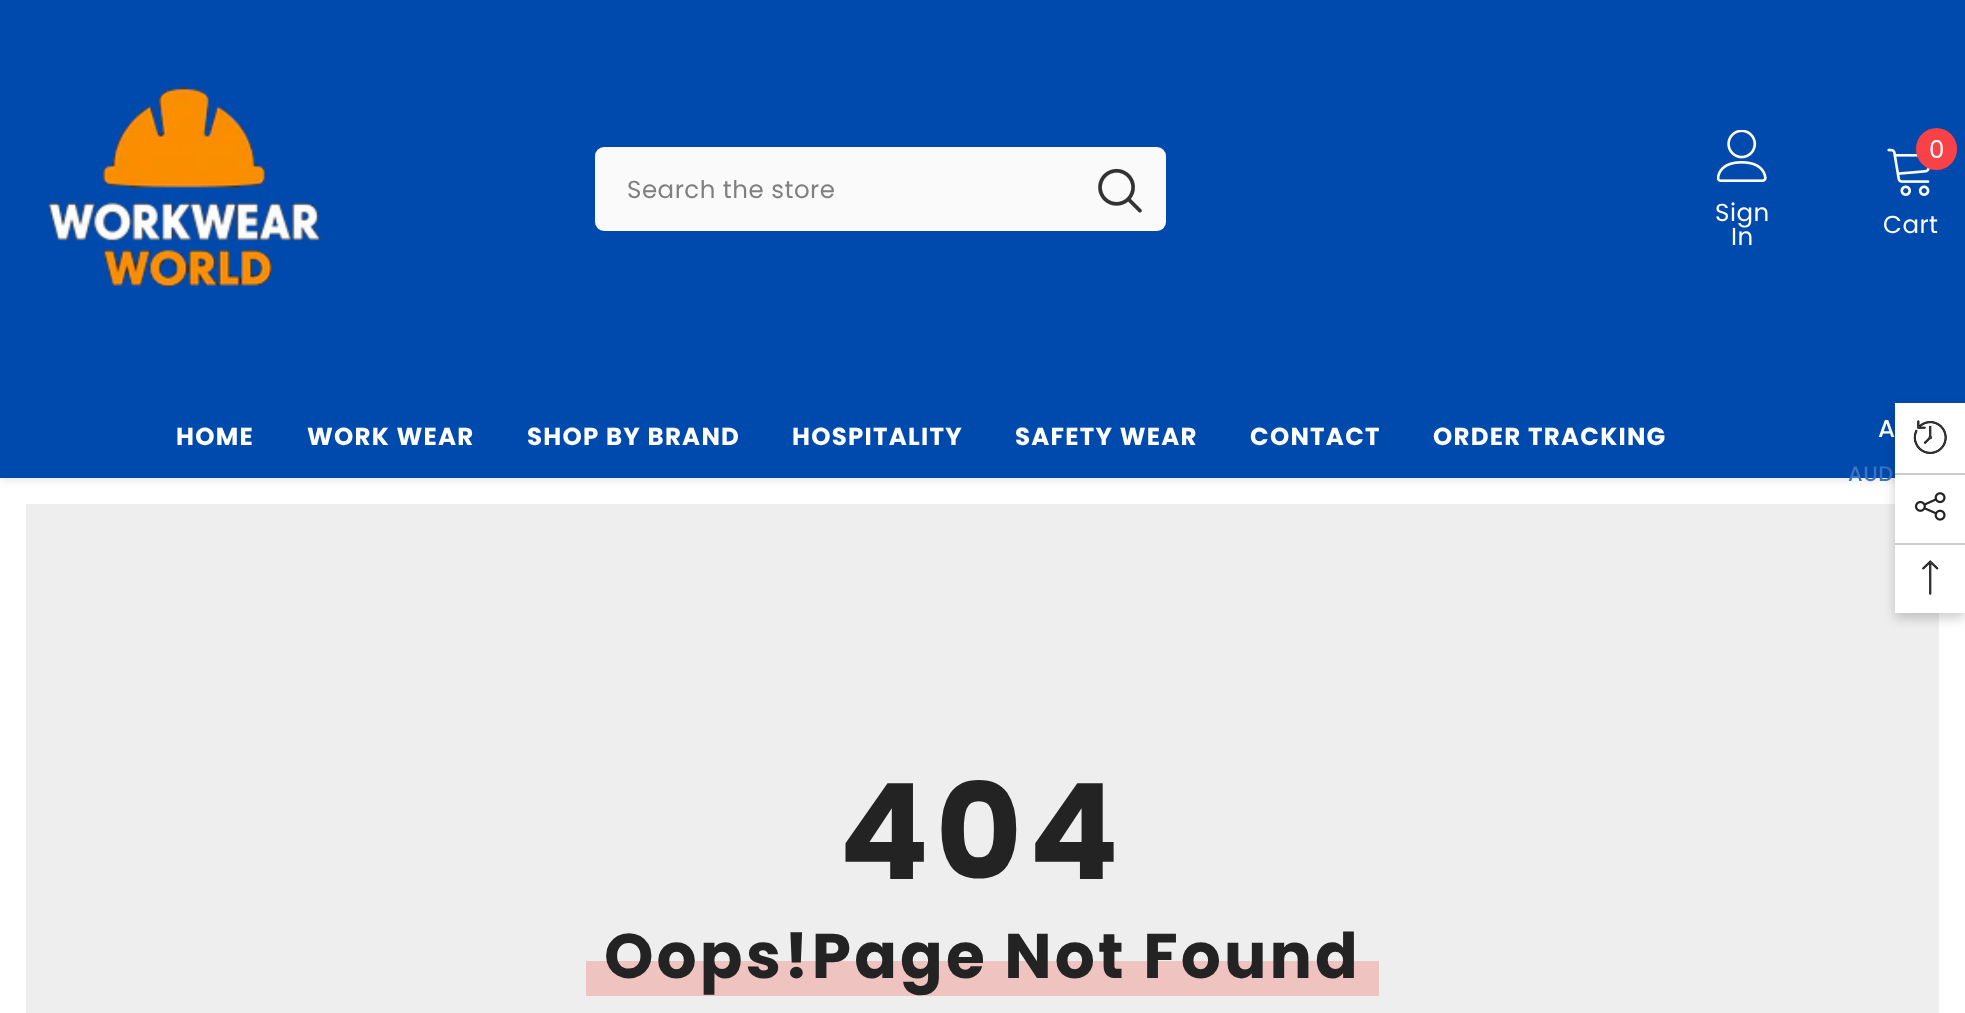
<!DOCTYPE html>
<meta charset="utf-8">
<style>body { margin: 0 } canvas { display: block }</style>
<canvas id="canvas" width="1965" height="1013"></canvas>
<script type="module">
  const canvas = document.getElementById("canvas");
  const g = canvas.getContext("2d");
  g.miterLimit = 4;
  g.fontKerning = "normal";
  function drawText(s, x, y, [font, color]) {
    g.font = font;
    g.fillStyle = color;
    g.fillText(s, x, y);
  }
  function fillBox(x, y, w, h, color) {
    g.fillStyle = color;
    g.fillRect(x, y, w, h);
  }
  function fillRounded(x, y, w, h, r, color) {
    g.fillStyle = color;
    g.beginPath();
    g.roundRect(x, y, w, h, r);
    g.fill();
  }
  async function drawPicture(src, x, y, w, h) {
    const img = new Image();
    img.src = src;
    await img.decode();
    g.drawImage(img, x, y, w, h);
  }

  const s1 = ["24.5px Poppins", "#808080"];
  const s2 = ["24.5px Poppins", "#FFFFFF"];
  const s3 = ["bold 24.5px Poppins", "#FFFFFF"];
  const s4 = ["500 24.5px Poppins", "#FFFFFF"];
  const s5 = ["500 21px Poppins", "#3C74BE"];
  const s6 = ["bold 133px Poppins", "#232323"];
  const s7 = ["bold 63px Poppins", "#232323"];

  fillBox(0, 0, 1965, 1013, "#FFFFFF");
  g.fillStyle = "rgba(0, 0, 0, 0.1)";
  g.filter = "blur(5px)";
  g.beginPath();
  g.rect(0, 380, 1965, 100);
  g.fill();
  g.filter = "none";
  fillBox(0, 0, 1965, 478, "#004AAD");
  await drawPicture("pic1.png", 48, 87, 273, 201);
  fillRounded(595, 147, 571, 84, 9, "#FAFAFA");
  g.letterSpacing = "0.5px";
  drawText("Search the store", 627, 198, s1);
  await drawPicture("pic2.png", 1098, 168, 44, 45);
  await drawPicture("pic3.png", 1887, 148, 43, 48);
  fillRounded(1916, 128, 41, 42, 20.5, "#F84248");
  g.letterSpacing = "0px";
  drawText("0", 1929, 158, s2);
  g.letterSpacing = "0.5px";
  drawText("Cart", 1883, 233, s2);
  await drawPicture("pic4.png", 1717, 130, 50, 52);
  drawText("Sign", 1715, 221, s2);
  drawText("In", 1731, 245, s2);
  g.letterSpacing = "1.25px";
  drawText("HOME", 176, 445, s3);
  drawText("WORK WEAR", 307, 445, s3);
  drawText("SHOP BY BRAND", 527, 445, s3);
  drawText("HOSPITALITY", 792, 445, s3);
  drawText("SAFETY WEAR", 1015, 445, s3);
  drawText("CONTACT", 1250, 445, s3);
  drawText("ORDER TRACKING", 1433, 445, s3);
  g.letterSpacing = "0.5px";
  drawText("A", 1878, 437, s4);
  drawText("AUD", 1848, 481, s5);
  fillBox(26, 504, 1913, 509, "#EEEEEE");
  g.letterSpacing = "6.5px";
  drawText("404", 839, 879, s6);
  fillBox(586, 961, 793, 35, "#EFC3C0");
  g.letterSpacing = "3.1px";
  drawText("Oops!Page Not Found", 604, 978, s7);
  g.fillStyle = "rgba(0, 0, 0, 0.2)";
  g.filter = "blur(6px)";
  g.beginPath();
  g.rect(1895, 408, 70, 210);
  g.fill();
  g.filter = "none";
  fillBox(1895, 403, 70, 210, "#FFFFFF");
  await drawPicture("pic5.png", 1913, 420, 34, 34);
  fillBox(1895, 473, 70, 2, "#CCCCCC");
  await drawPicture("pic6.png", 1914, 492, 32, 29);
  fillBox(1895, 543, 70, 2, "#CCCCCC");
  await drawPicture("pic7.png", 1922, 560, 17, 35);
</script>
